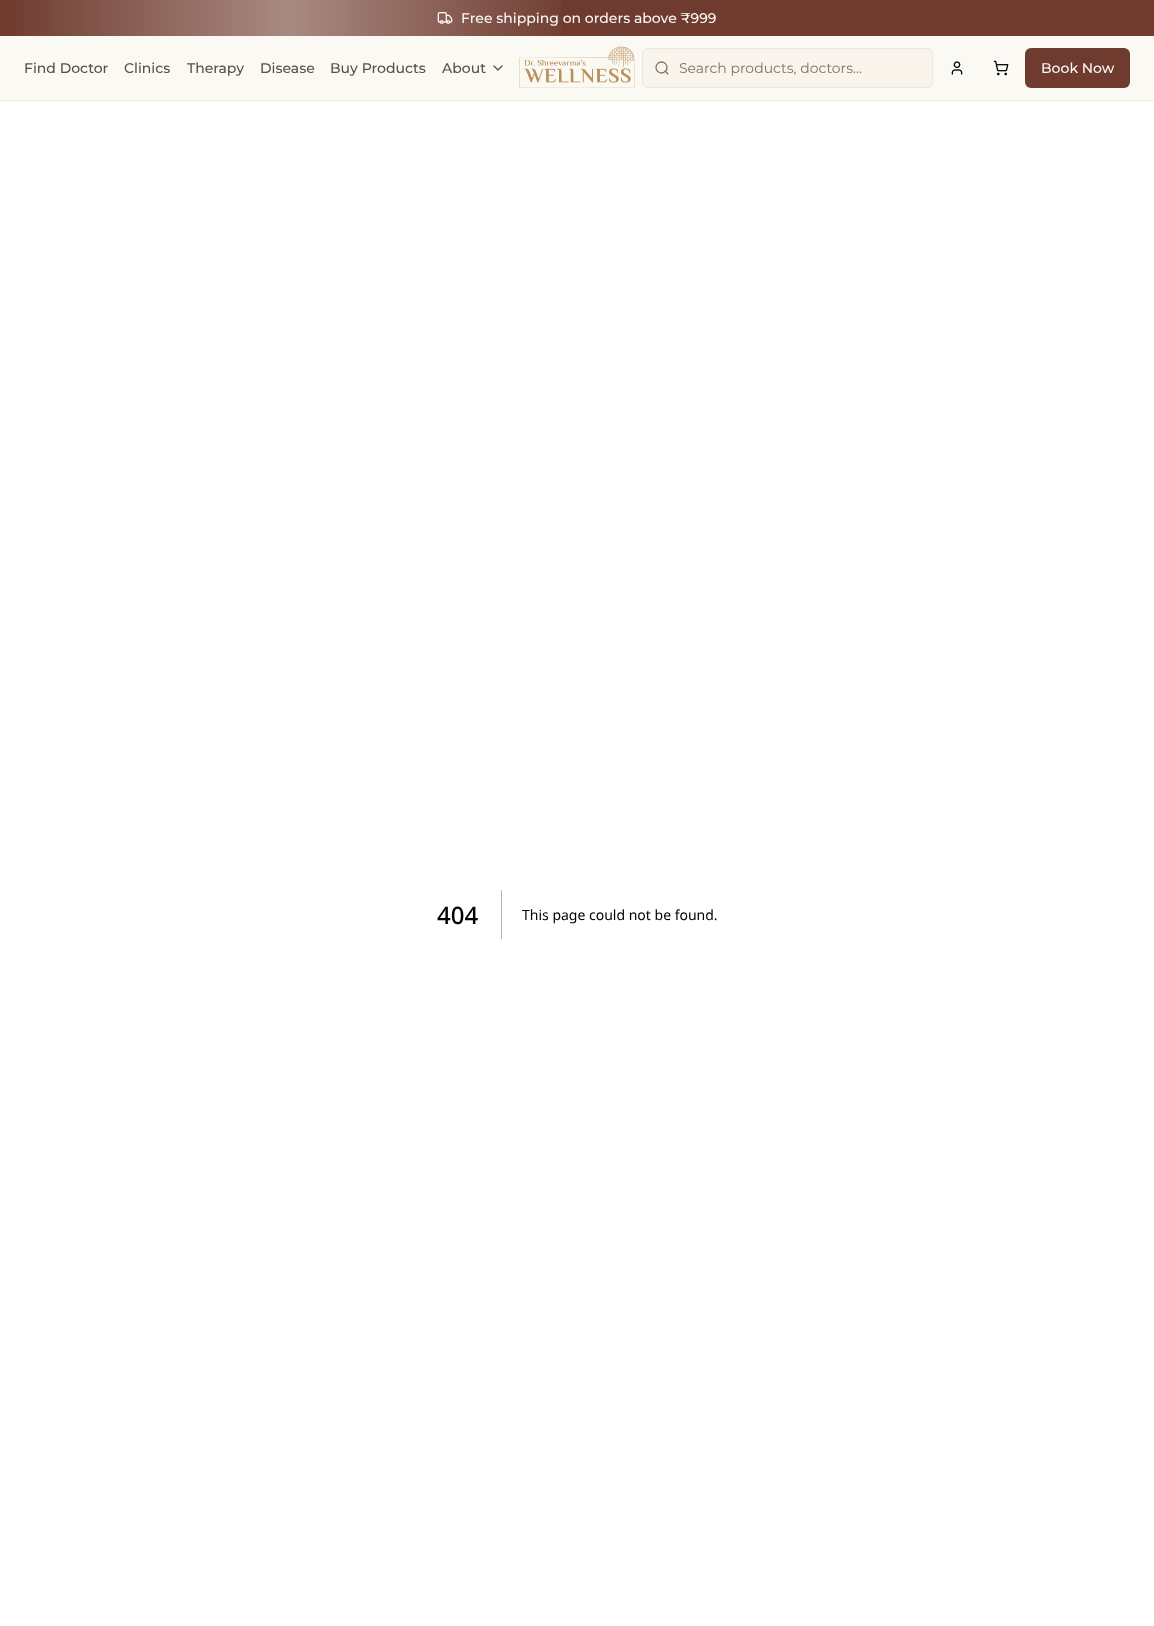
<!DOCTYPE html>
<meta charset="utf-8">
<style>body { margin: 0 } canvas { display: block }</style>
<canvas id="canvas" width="1154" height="1626"></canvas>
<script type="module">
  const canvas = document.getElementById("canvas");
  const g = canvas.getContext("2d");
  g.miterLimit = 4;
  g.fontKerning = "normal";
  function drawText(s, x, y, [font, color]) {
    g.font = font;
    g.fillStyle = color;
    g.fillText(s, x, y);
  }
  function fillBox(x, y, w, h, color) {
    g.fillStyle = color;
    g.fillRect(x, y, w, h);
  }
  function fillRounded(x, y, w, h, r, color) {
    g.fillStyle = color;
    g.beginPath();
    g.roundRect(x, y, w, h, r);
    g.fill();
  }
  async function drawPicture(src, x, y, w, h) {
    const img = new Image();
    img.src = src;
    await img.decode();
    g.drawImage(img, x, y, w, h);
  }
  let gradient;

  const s1 = ["500 14px Montserrat", "#FAF8F5"];
  const s2 = ["500 14px Montserrat", "#57504A"];
  const s3 = ["14px Montserrat", "#7E7367"];
  const s4 = ["500 24px Noto Sans", "#000000"];
  const s5 = ["14px Noto Sans", "#000000"];

  fillBox(0, 0, 1154, 1626, "#FFFFFF");
  fillBox(0, 0, 1154, 36, "#6F3B2F");
  await drawPicture("pic1.png", 437, 12, 16, 12);
  drawText("Free shipping on orders above ₹999", 461, 23, s1);
  gradient = g.createLinearGradient(0, 18, 577, 18);
  gradient.addColorStop(0, "rgba(255, 255, 255, 0)");
  gradient.addColorStop(0.5, "rgba(255, 255, 255, 0.4)");
  gradient.addColorStop(1, "rgba(255, 255, 255, 0)");
  g.fillStyle = gradient;
  g.fillRect(16, 0, 545, 36);
  fillBox(0, 36, 1154, 64, "#FBF9F4");
  fillBox(0, 100, 1154, 1, "#F0EDE6");
  drawText("Find Doctor", 24, 73, s2);
  drawText("Clinics", 124, 73, s2);
  drawText("Therapy", 187, 73, s2);
  drawText("Disease", 260, 73, s2);
  drawText("Buy Products", 330, 73, s2);
  drawText("About", 442, 73, s2);
  g.beginPath();
  g.moveTo(494, 66);
  g.lineTo(498, 70);
  g.lineTo(502, 66);
  g.strokeStyle = "#57504A";
  g.lineWidth = 1.3;
  g.lineCap = "round";
  g.lineJoin = "round";
  g.stroke();
  await drawPicture("pic2.png", 519, 46, 116, 42);
  g.fillStyle = "#F9F5EC";
  g.beginPath();
  g.roundRect(642.5, 48.5, 290, 39, 5.5);
  g.fill();
  g.strokeStyle = "#EBE7E0";
  g.lineWidth = 1;
  g.lineJoin = "miter";
  g.stroke();
  g.beginPath();
  g.arc(661.5, 67.5, 5.5, 0, Math.PI * 2);
  g.strokeStyle = "#7E7367";
  g.lineWidth = 1.3;
  g.stroke();
  g.beginPath();
  g.moveTo(668, 74);
  g.lineTo(665, 71);
  g.lineJoin = "round";
  g.stroke();
  drawText("Search products, doctors...", 679, 73, s3);
  await drawPicture("pic3.png", 951, 61, 12, 14);
  await drawPicture("pic4.png", 993, 60, 16, 16);
  fillRounded(1025, 48, 105, 40, 6, "#6F3B2F");
  drawText("Book Now", 1041, 73, s1);
  fillBox(501, 890, 1, 49, "#B3B3B3");
  drawText("404", 437, 924, s4);
  drawText("This page could not be found.", 522, 920, s5);
</script>
